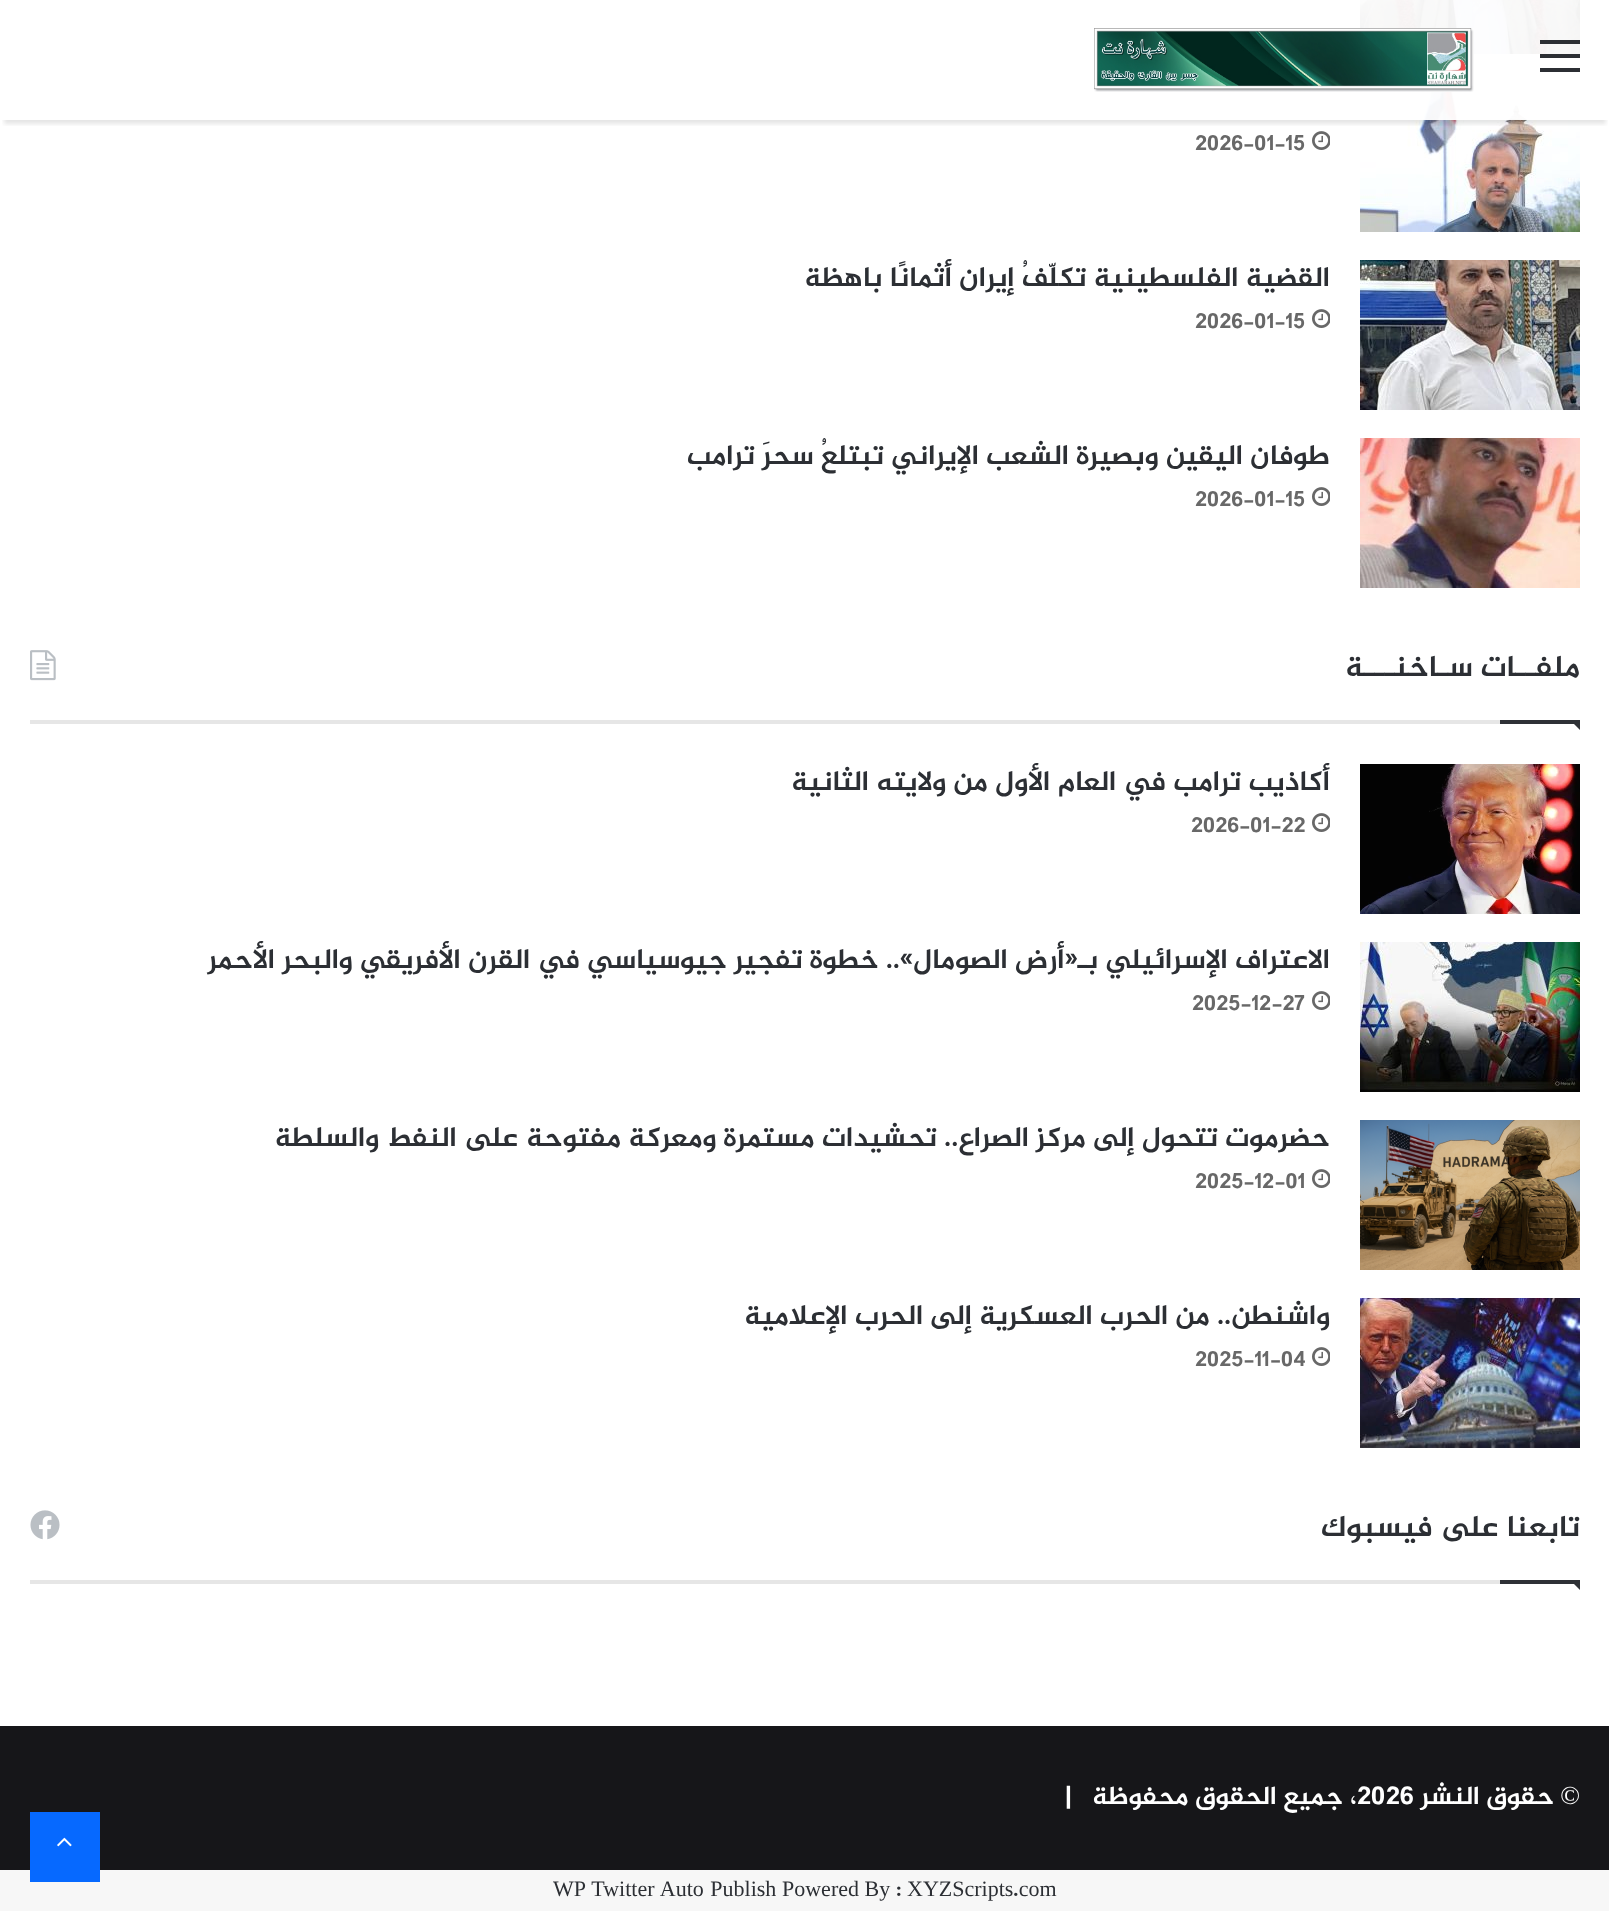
<!DOCTYPE html>
<meta charset="utf-8">
<style>body { margin: 0 } canvas { display: block }</style>
<canvas id="canvas" width="1609" height="1911"></canvas>
<script type="module">
  const canvas = document.getElementById("canvas");
  const g = canvas.getContext("2d");
  g.miterLimit = 4;
  g.fontKerning = "normal";
  function drawText(s, x, y, [font, color]) {
    g.font = font;
    g.fillStyle = color;
    g.fillText(s, x, y);
  }
  function fillBox(x, y, w, h, color) {
    g.fillStyle = color;
    g.fillRect(x, y, w, h);
  }
  async function drawPicture(src, x, y, w, h) {
    const img = new Image();
    img.src = src;
    await img.decode();
    g.drawImage(img, x, y, w, h);
  }

  const s1 = ["bold 22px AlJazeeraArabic", "#686868"];
  const s2 = ["bold 28px AlJazeeraArabic", "#2C2F34"];
  const s3 = ["bold 30px AlJazeeraArabic", "#2C2F34"];
  const s4 = ["26px Liberation Serif", "#FFFFFF"];
  const s5 = ["bold 26px AlJazeeraArabic", "#FFFFFF"];
  const s6 = ["22px Liberation Serif", "#2C2F34"];
  const s7 = ["bold 22px AlJazeeraArabic", "#2C2F34"];

  fillBox(0, 0, 1609, 1911, "#F7F7F7");
  fillBox(0, 0, 1609, 1726, "#FFFFFF");
  await drawPicture("pic2.png", 1360, 0, 220, 54);
  await drawPicture("pic3.png", 1360, 82, 220, 150);
  g.save();
  g.beginPath();
  g.rect(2, 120, 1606, 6);
  g.clip();
  g.fillStyle = "rgba(0, 0, 0, 0.1)";
  g.filter = "blur(2px)";
  g.beginPath();
  g.rect(4, 12, 1602, 112);
  g.fill();
  g.filter = "none";
  g.restore();
  fillBox(1360, 0, 220, 120, "rgba(255, 255, 255, 0.95)");
  fillBox(1540, 54, 40, 4, "#2C2F34");
  fillBox(1540, 40, 40, 4, "#2C2F34");
  fillBox(1540, 68, 40, 4, "#2C2F34");
  await drawPicture("pic1.png", 1094, 28, 380, 64);
  await drawPicture("pic4.png", 1312, 131, 18, 19);
  drawText("2026-01-15", 1195, 150, s1);
  await drawPicture("pic5.png", 1360, 260, 220, 150);
  g.direction = "rtl";
  drawText("القضية الفلسطينية تكلّفُ إيران أثمانًا باهظة", 1330, 286, s2);
  await drawPicture("pic4.png", 1312, 309, 18, 19);
  g.direction = "ltr";
  drawText("2026-01-15", 1195, 328, s1);
  await drawPicture("pic6.png", 1360, 438, 220, 150);
  g.direction = "rtl";
  drawText("طوفان اليقين وبصيرة الشعب الإيراني تبتلعُ سحرَ ترامب", 1330, 464, s2);
  await drawPicture("pic4.png", 1312, 487, 18, 19);
  g.direction = "ltr";
  drawText("2026-01-15", 1195, 506, s1);
  fillBox(30, 720, 1470, 4, "#E6E6E6");
  g.direction = "rtl";
  drawText("ملفــات سـاخنـــة", 1580, 676, s3);
  await drawPicture("pic7.png", 30, 650, 26, 31);
  g.fillStyle = "#2E3136";
  g.beginPath();
  g.moveTo(1570, 720);
  g.lineTo(1580, 720);
  g.lineTo(1580, 730);
  g.closePath();
  g.fill();
  fillBox(1500, 720, 80, 4, "#2E3136");
  await drawPicture("pic8.png", 1360, 764, 220, 150);
  drawText("أكاذيب ترامب في العام الأول من ولايته الثانية", 1330, 790, s2);
  await drawPicture("pic4.png", 1312, 813, 18, 19);
  g.direction = "ltr";
  drawText("2026-01-22", 1191, 832, s1);
  await drawPicture("pic9.png", 1360, 942, 220, 150);
  g.direction = "rtl";
  drawText("الاعتراف الإسرائيلي بـ«أرض الصومال».. خطوة تفجير جيوسياسي في القرن الأفريقي والبحر الأحمر", 1330, 968, s2);
  await drawPicture("pic4.png", 1312, 991, 18, 19);
  g.direction = "ltr";
  drawText("2025-12-27", 1192, 1010, s1);
  await drawPicture("pic10.png", 1360, 1120, 220, 150);
  g.direction = "rtl";
  drawText("حضرموت تتحول إلى مركز الصراع.. تحشيدات مستمرة ومعركة مفتوحة على النفط والسلطة", 1330, 1146, s2);
  await drawPicture("pic4.png", 1312, 1169, 18, 19);
  g.direction = "ltr";
  drawText("2025-12-01", 1195, 1188, s1);
  await drawPicture("pic11.png", 1360, 1298, 220, 150);
  g.direction = "rtl";
  drawText("واشنطن.. من الحرب العسكرية إلى الحرب الإعلامية", 1330, 1324, s2);
  await drawPicture("pic4.png", 1312, 1347, 18, 19);
  g.direction = "ltr";
  drawText("2025-11-04", 1195, 1366, s1);
  fillBox(30, 1580, 1470, 4, "#E6E6E6");
  g.direction = "rtl";
  drawText("تابعنا على فيسبوك", 1580, 1536, s3);
  await drawPicture("pic12.png", 30, 1510, 30, 30);
  g.fillStyle = "#2E3136";
  g.beginPath();
  g.moveTo(1570, 1580);
  g.lineTo(1580, 1580);
  g.lineTo(1580, 1590);
  g.closePath();
  g.fill();
  fillBox(1500, 1580, 80, 4, "#2E3136");
  fillBox(0, 1726, 1609, 144, "#161619");
  drawText("©", 1580, 1804, s4);
  drawText("حقوق النشر", 1554, 1804, s5);
  g.direction = "ltr";
  drawText("2026", 1357, 1804, s5);
  g.direction = "rtl";
  drawText("، جميع الحقوق محفوظة   |", 1357, 1804, s5);
  fillBox(30, 1812, 70, 70, "#0669FF");
  await drawPicture("pic13.png", 57, 1837, 15, 10);
  g.direction = "ltr";
  drawText("XYZScripts com", 907, 1896, s6);
  drawText(":", 896, 1896, s7);
  drawText("Powered By", 782, 1896, s6);
  g.wordSpacing = "1px";
  drawText("WP Twitter Auto Publish", 553, 1896, s6);
  g.wordSpacing = "0px";
  drawText(".", 1013, 1896, s7);
</script>
